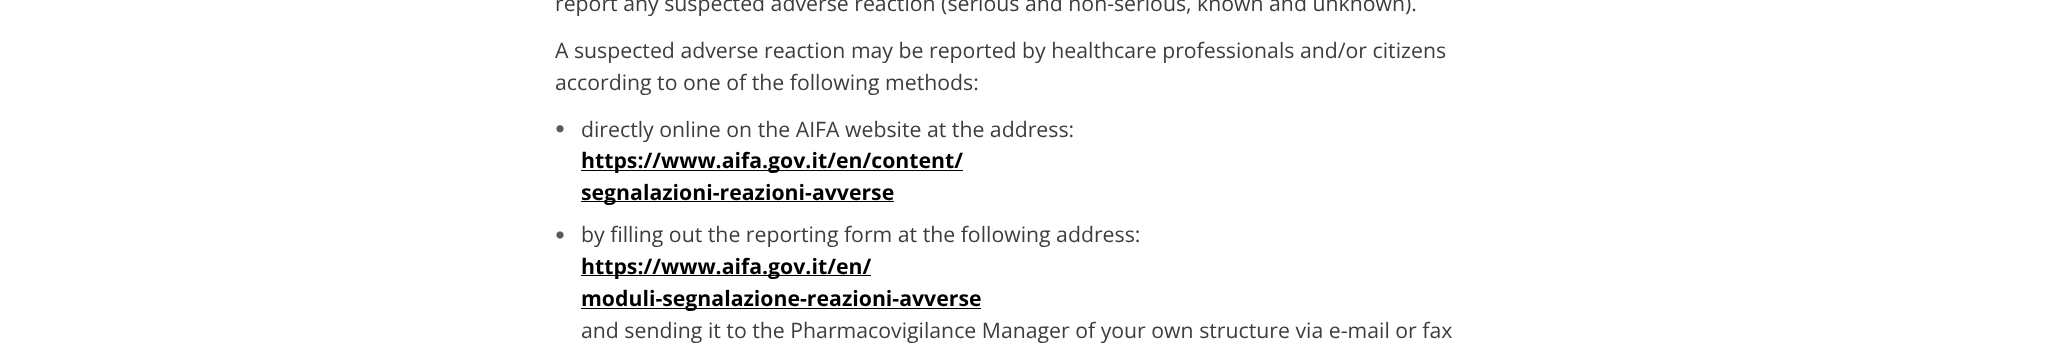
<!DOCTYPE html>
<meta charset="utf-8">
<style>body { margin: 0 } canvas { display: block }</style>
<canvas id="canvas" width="2069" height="360"></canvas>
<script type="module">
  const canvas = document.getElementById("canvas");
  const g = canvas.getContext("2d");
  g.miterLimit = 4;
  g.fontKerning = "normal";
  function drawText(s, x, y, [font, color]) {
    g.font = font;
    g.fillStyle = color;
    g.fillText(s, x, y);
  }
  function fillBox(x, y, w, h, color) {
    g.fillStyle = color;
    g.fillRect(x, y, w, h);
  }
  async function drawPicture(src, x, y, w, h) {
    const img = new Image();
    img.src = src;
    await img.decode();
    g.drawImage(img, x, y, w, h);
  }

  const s1 = ["21.25px Open Sans", "#3B3E40"];
  const s2 = ["bold 21.25px Open Sans", "#000000"];

  fillBox(0, 0, 2069, 360, "#FFFFFF");
  drawText("report any suspected adverse reaction (serious and non-serious, known and unknown).", 555, 11, s1);
  drawText("A suspected adverse reaction may be reported by healthcare professionals and/or citizens", 555, 58, s1);
  drawText("according to one of the following methods:", 555, 90, s1);
  await drawPicture("pic1.png", 556, 125, 8, 8);
  drawText("directly online on the AIFA website at the address:", 581, 137, s1);
  fillBox(581, 170, 382, 1, "#000000");
  drawText("https://www.aifa.gov.it/en/content/", 581, 168, s2);
  fillBox(581, 201, 313, 1, "#000000");
  drawText("segnalazioni-reazioni-avverse", 581, 200, s2);
  await drawPicture("pic2.png", 556, 231, 8, 8);
  drawText("by filling out the reporting form at the following address:", 581, 242, s1);
  fillBox(581, 275, 290, 1, "#000000");
  drawText("https://www.aifa.gov.it/en/", 581, 274, s2);
  fillBox(581, 308, 400, 1, "#000000");
  drawText("moduli-segnalazione-reazioni-avverse", 581, 306, s2);
  drawText("and sending it to the Pharmacovigilance Manager of your own structure via e-mail or fax", 581, 338, s1);
</script>
